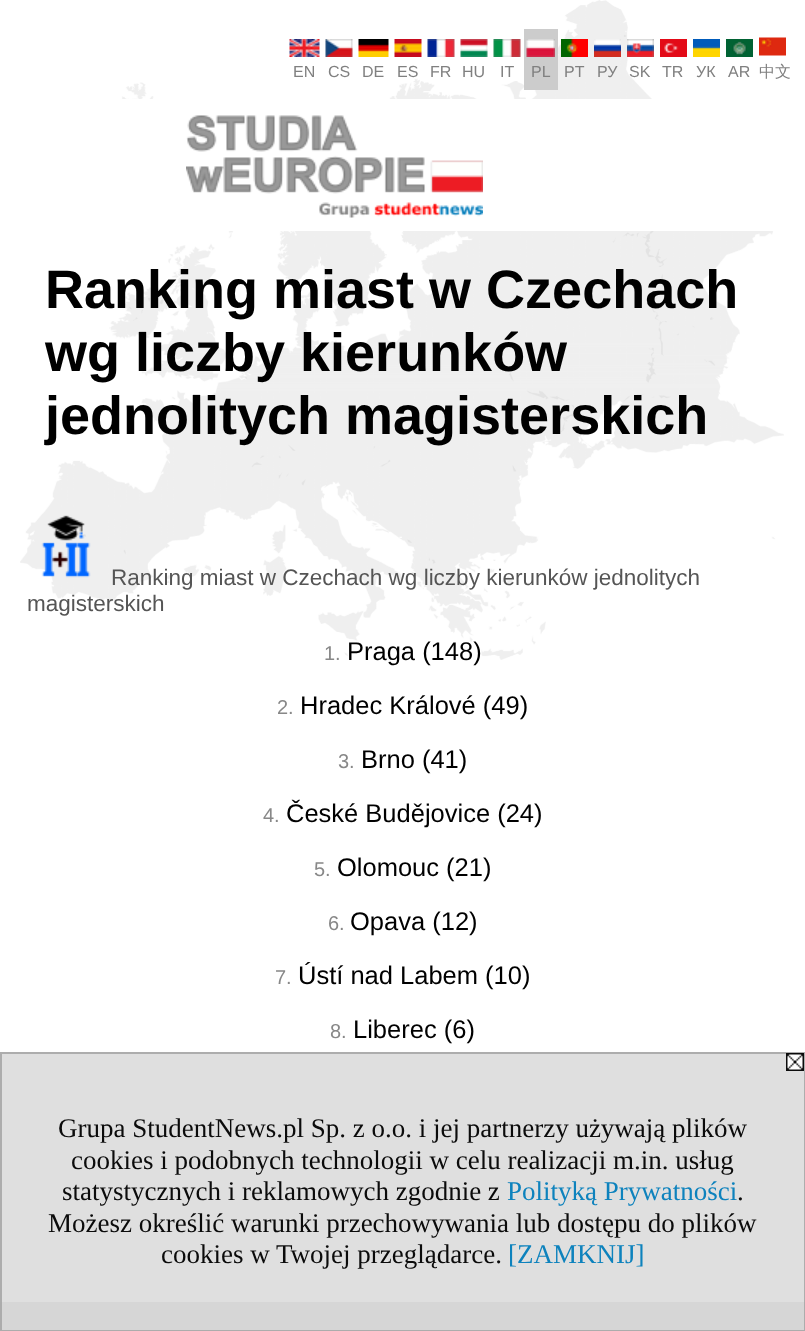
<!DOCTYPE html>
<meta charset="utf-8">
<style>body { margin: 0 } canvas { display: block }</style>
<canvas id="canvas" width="805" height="1331"></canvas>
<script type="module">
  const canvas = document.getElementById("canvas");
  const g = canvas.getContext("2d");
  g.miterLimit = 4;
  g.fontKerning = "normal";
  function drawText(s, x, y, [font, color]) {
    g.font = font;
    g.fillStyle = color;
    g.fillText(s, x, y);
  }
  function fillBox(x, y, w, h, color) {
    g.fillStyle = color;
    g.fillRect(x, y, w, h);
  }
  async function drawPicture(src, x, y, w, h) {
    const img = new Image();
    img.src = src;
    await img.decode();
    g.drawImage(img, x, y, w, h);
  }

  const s1 = ["16px Liberation Sans", "#808080"];
  const s2 = ["500 16px WenQuanYi Zen Hei", "#808080"];
  const s3 = ["bold 54px Liberation Sans", "#000000"];
  const s4 = ["22.5px Liberation Sans", "#555555"];
  const s5 = ["20px Liberation Sans", "#888888"];
  const s6 = ["25.5px Liberation Sans", "#000000"];
  const s7 = ["27px Liberation Serif", "#0B0B0B"];
  const s8 = ["27px Liberation Serif", "#0D82BD"];

  fillBox(0, 0, 805, 1331, "#FFFFFF");
  fillBox(0, 1052, 805, 250, "#DFDFDF");
  await drawPicture("pic1.png", 20, 0, 764, 660);
  await drawPicture("pic2.png", 289, 39, 31, 18);
  drawText("EN", 293, 77, s1);
  await drawPicture("pic3.png", 325, 39, 28, 18);
  drawText("CS", 328, 77, s1);
  await drawPicture("pic4.png", 358, 39, 31, 18);
  drawText("DE", 362, 77, s1);
  await drawPicture("pic5.png", 394, 39, 28, 18);
  drawText("ES", 397, 77, s1);
  await drawPicture("pic6.png", 427, 39, 28, 18);
  drawText("FR", 430, 77, s1);
  await drawPicture("pic7.png", 460, 39, 28, 18);
  drawText("HU", 462, 77, s1);
  await drawPicture("pic8.png", 493, 39, 28, 18);
  drawText("IT", 500, 77, s1);
  fillBox(524, 29, 34, 61, "#CCCCCC");
  await drawPicture("pic9.png", 526, 39, 29, 18);
  drawText("PL", 531, 77, s1);
  await drawPicture("pic10.png", 561, 39, 27, 18);
  drawText("PT", 564, 77, s1);
  await drawPicture("pic11.png", 594, 39, 27, 18);
  drawText("РУ", 597, 77, s1);
  await drawPicture("pic12.png", 627, 39, 27, 18);
  drawText("SK", 629, 77, s1);
  await drawPicture("pic13.png", 660, 39, 27, 18);
  drawText("TR", 662, 77, s1);
  await drawPicture("pic14.png", 693, 39, 27, 18);
  drawText("УК", 696, 77, s1);
  await drawPicture("pic15.png", 726, 39, 27, 18);
  drawText("AR", 728, 77, s1);
  await drawPicture("pic16.png", 759, 37, 27, 19);
  drawText("中文", 759, 77, s2);
  fillBox(118, 99, 664, 132, "#FFFFFF");
  await drawPicture("pic17.png", 186, 115, 297, 103);
  drawText("Ranking miast w Czechach", 45, 308, s3);
  drawText("wg liczby kierunków", 45, 371, s3);
  drawText("jednolitych magisterskich", 45, 434, s3);
  await drawPicture("pic18.png", 41, 515, 50, 63);
  drawText("Ranking miast w Czechach wg liczby kierunków jednolitych", 111, 585, s4);
  drawText("magisterskich", 27, 611, s4);
  drawText("1.", 324, 660, s5);
  drawText("Praga (148)", 347, 660, s6);
  drawText("2.", 277, 714, s5);
  drawText("Hradec Králové (49)", 300, 714, s6);
  drawText("3.", 338, 768, s5);
  drawText("Brno (41)", 361, 768, s6);
  drawText("4.", 263, 822, s5);
  drawText("České Budějovice (24)", 286, 822, s6);
  drawText("5.", 314, 876, s5);
  drawText("Olomouc (21)", 337, 876, s6);
  drawText("6.", 328, 930, s5);
  drawText("Opava (12)", 350, 930, s6);
  drawText("7.", 275, 984, s5);
  drawText("Ústí nad Labem (10)", 298, 984, s6);
  drawText("8.", 330, 1038, s5);
  drawText("Liberec (6)", 353, 1038, s6);
  fillBox(0, 1302, 805, 29, "#D6D6D6");
  g.strokeStyle = "rgba(170, 170, 170, 0.95)";
  g.lineWidth = 2;
  g.strokeRect(1, 1053, 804, 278);
  await drawPicture("pic19.png", 786, 1053, 18, 18);
  drawText("Grupa StudentNews.pl Sp. z o.o. i jej partnerzy używają plików", 58, 1137, s7);
  drawText("cookies i podobnych technologii w celu realizacji m.in. usług", 71, 1169, s7);
  drawText("statystycznych i reklamowych zgodnie z", 62, 1200, s7);
  drawText("Polityką Prywatności", 507, 1200, s8);
  drawText(".", 737, 1200, s7);
  drawText("Możesz określić warunki przechowywania lub dostępu do plików", 48, 1232, s7);
  drawText("cookies w Twojej przeglądarce.", 161, 1263, s7);
  drawText("[ZAMKNIJ]", 508, 1263, s8);
</script>
